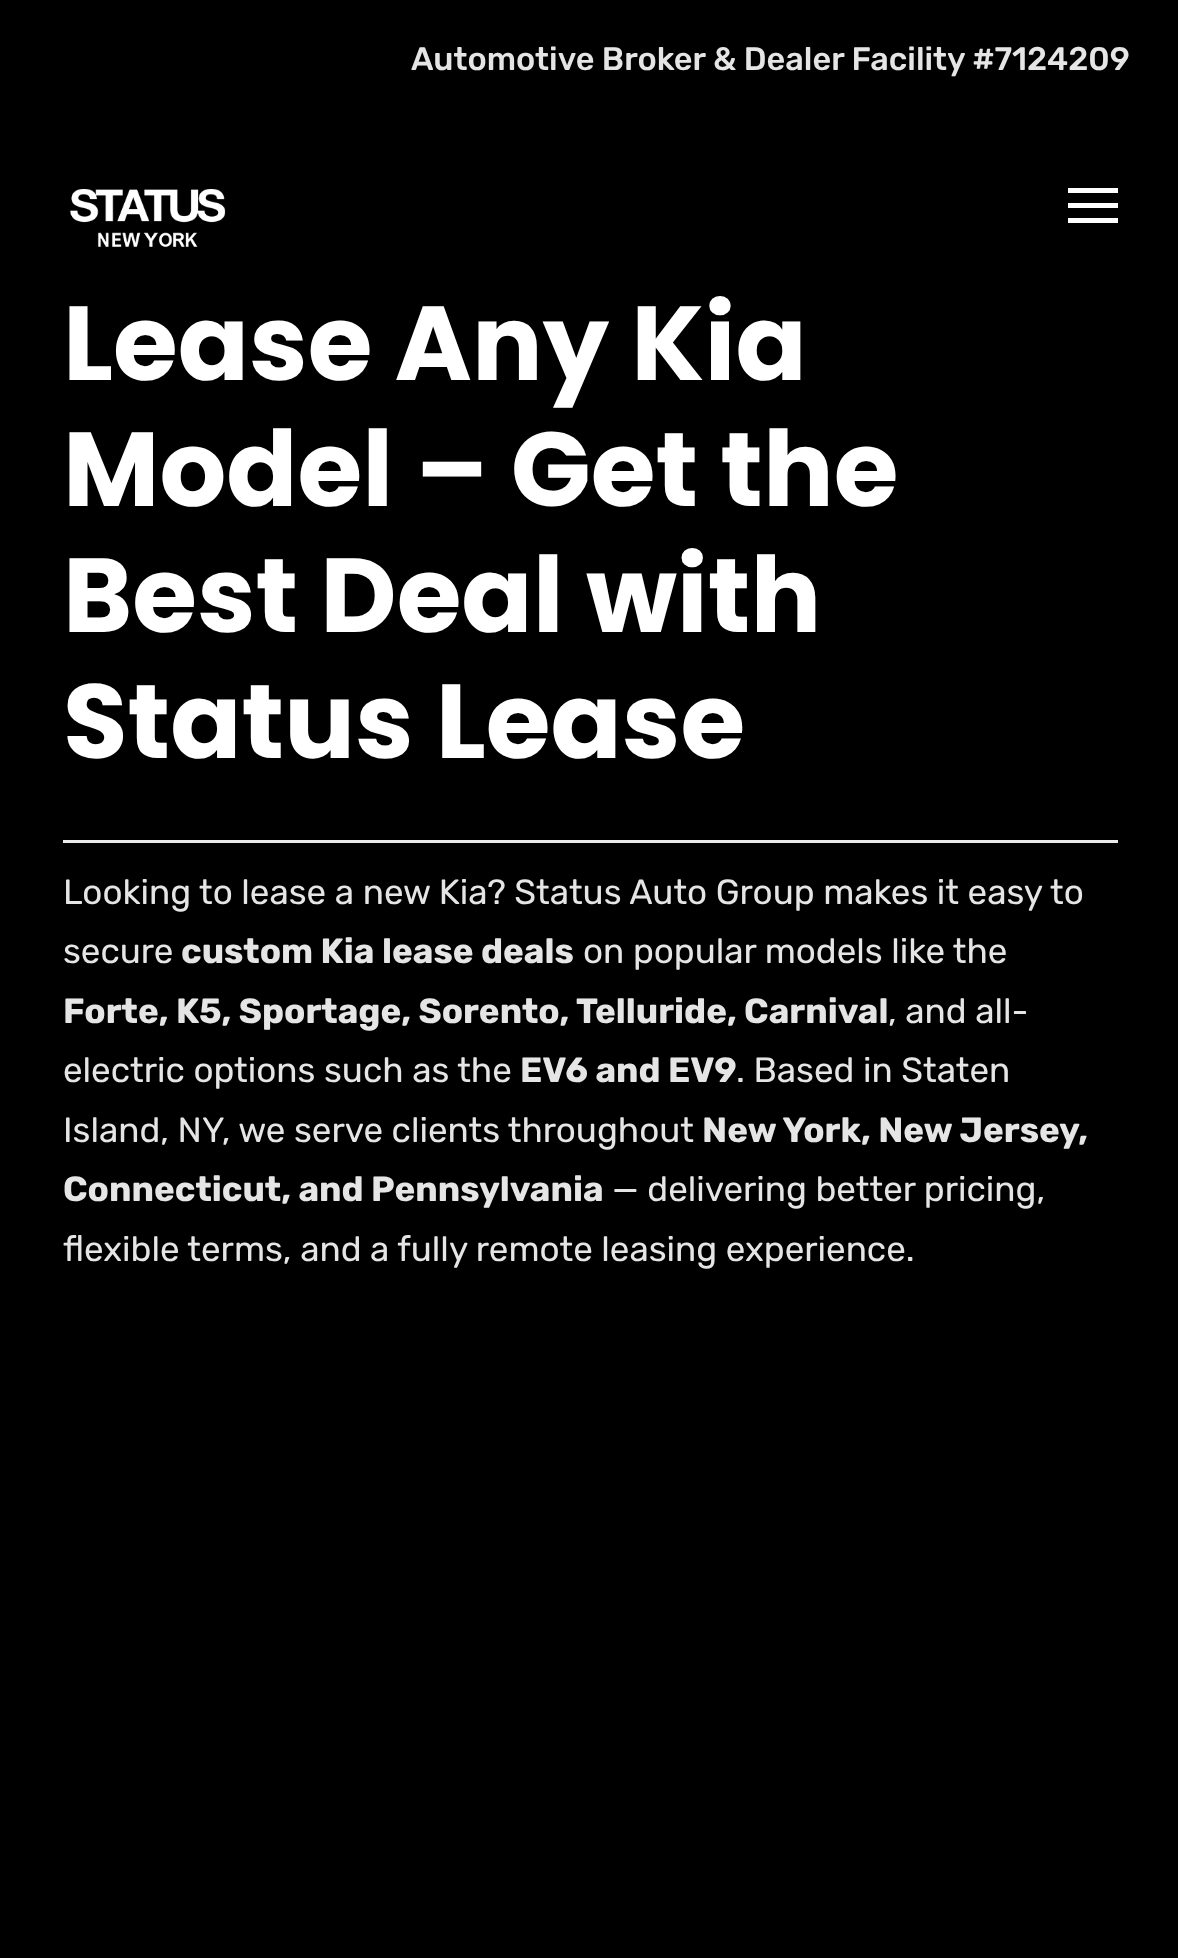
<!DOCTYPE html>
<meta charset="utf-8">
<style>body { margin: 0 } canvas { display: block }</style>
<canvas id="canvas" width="1178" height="1958"></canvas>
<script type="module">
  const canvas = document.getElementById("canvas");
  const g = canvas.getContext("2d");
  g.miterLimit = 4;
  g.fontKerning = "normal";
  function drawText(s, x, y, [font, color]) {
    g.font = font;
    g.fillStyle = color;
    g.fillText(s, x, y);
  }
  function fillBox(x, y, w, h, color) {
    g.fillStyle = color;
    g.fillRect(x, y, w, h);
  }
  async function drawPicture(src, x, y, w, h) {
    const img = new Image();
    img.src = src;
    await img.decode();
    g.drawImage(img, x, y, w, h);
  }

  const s1 = ["500 32.5px Rubik", "#E5E5E5"];
  const s2 = ["bold 105px Poppins", "#FFFFFF"];
  const s3 = ["35px Rubik", "#E5E5E5"];
  const s4 = ["bold 35px Rubik", "#E5E5E5"];

  fillBox(0, 0, 1178, 1958, "#000000");
  drawText("Automotive Broker & Dealer Facility #7124209", 411, 70, s1);
  fillBox(713, 296, 13, 2, "rgba(0, 0, 0, 0.06)");
  await drawPicture("pic1.png", 70, 189, 156, 58);
  fillBox(1068, 188, 50, 5, "#FFFFFF");
  fillBox(1068, 218, 50, 5, "#FFFFFF");
  fillBox(1068, 203, 50, 5, "#FFFFFF");
  drawText("Lease Any Kia", 63, 380, s2);
  drawText("Model – Get the", 63, 506, s2);
  drawText("Best Deal with", 63, 632, s2);
  drawText("Status Lease", 63, 758, s2);
  fillBox(63, 840, 1055, 3, "#EBEBEB");
  drawText("Looking to lease a new Kia? Status Auto Group makes it easy to", 63, 904, s3);
  drawText("secure", 63, 963, s3);
  drawText("custom Kia lease deals", 181, 963, s4);
  drawText("on popular models like the", 583, 963, s3);
  drawText("Forte, K5, Sportage, Sorento, Telluride, Carnival", 63, 1023, s4);
  drawText(", and all-", 888, 1023, s3);
  drawText("electric options such as the", 63, 1082, s3);
  drawText("EV6 and EV9", 520, 1082, s4);
  drawText(". Based in Staten", 736, 1082, s3);
  drawText("Island, NY, we serve clients throughout", 63, 1142, s3);
  drawText("New York, New Jersey,", 702, 1142, s4);
  drawText("Connecticut, and Pennsylvania", 63, 1201, s4);
  drawText("— delivering better pricing,", 612, 1201, s3);
  drawText("flexible terms, and a fully remote leasing experience.", 63, 1261, s3);
</script>
